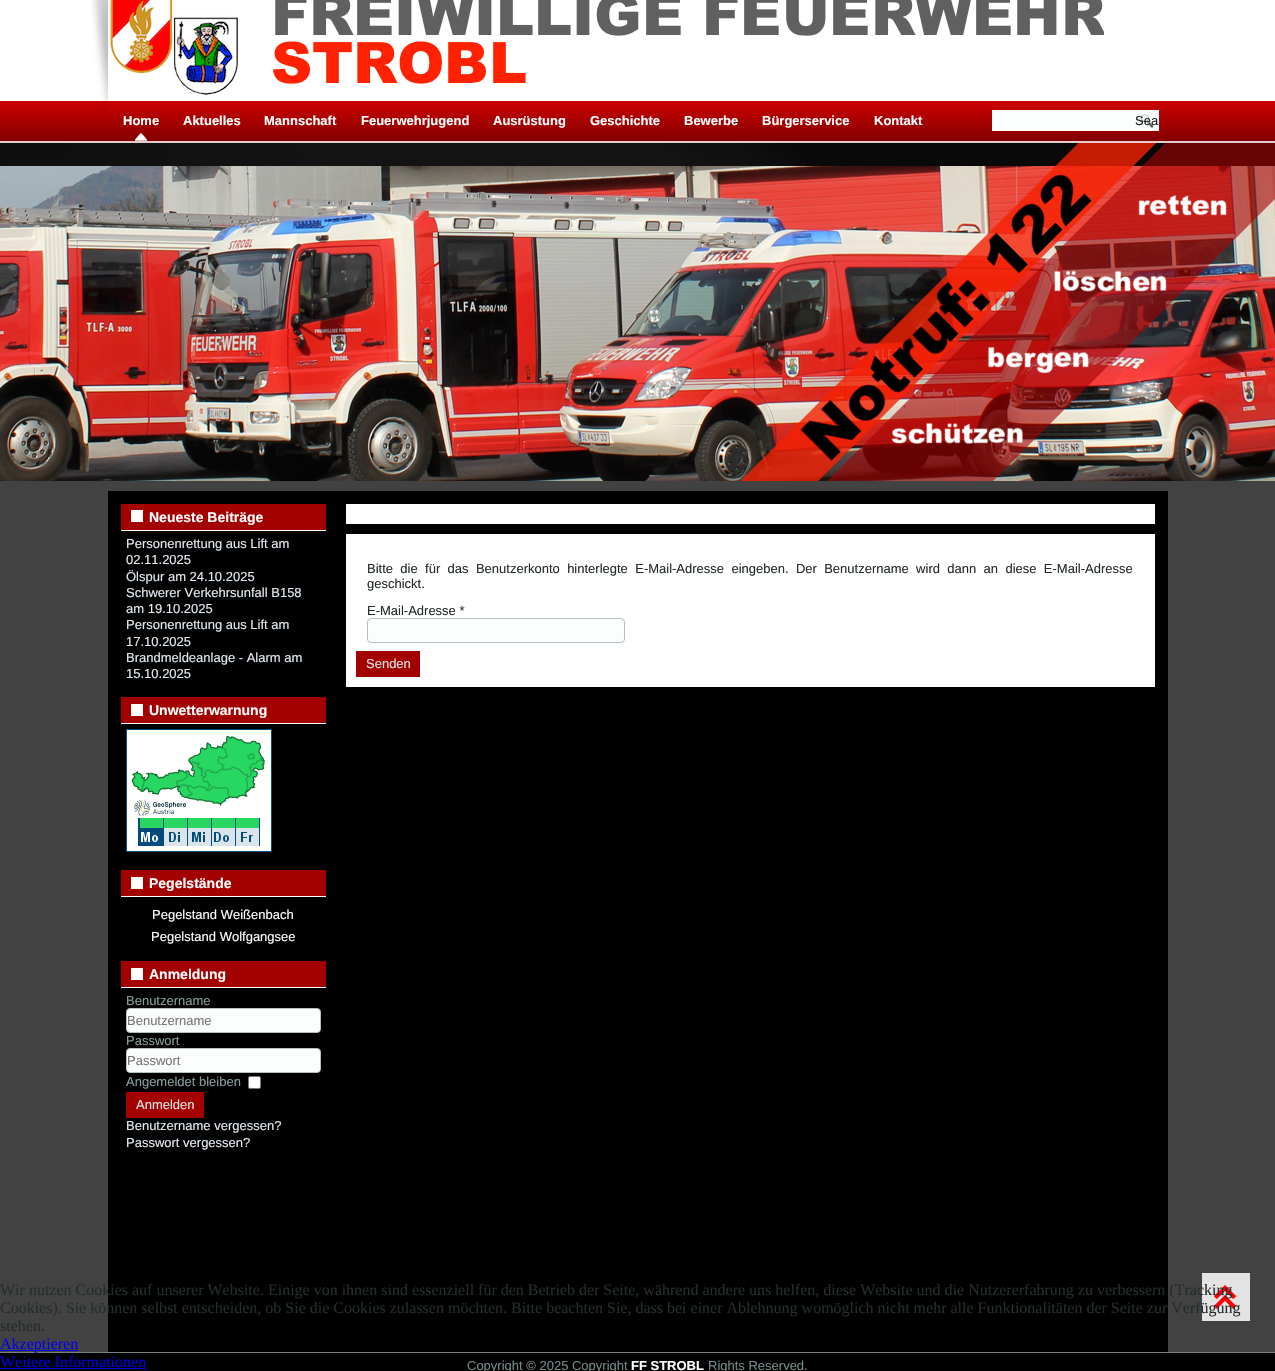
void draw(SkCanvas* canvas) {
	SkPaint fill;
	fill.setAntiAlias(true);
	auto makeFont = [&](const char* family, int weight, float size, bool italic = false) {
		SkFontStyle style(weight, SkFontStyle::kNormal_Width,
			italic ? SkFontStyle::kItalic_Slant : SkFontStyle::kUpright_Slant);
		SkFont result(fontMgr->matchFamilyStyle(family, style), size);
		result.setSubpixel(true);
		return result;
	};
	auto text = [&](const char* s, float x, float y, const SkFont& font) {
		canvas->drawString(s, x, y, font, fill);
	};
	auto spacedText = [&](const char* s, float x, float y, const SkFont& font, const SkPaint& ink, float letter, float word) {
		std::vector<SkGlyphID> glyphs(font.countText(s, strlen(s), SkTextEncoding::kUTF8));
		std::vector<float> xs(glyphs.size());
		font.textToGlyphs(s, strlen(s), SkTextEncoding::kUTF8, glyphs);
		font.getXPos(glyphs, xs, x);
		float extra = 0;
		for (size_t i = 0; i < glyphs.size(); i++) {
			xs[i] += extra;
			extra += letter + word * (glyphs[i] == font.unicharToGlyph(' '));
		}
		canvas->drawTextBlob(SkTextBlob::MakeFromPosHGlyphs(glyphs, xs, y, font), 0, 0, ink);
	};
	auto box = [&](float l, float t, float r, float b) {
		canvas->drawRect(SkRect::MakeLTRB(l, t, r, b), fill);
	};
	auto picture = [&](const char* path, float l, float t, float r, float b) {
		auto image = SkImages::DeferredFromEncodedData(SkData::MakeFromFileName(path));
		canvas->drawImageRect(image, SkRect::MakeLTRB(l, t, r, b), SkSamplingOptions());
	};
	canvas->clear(0xFF424242);
	picture("image0.png", 0, 143, 1275, 166);
	fill.setColor(0xFFFFFFFF);
	box(0, 0, 1275, 101);
	picture("image3.png", 0, 166, 1275, 481);
	picture("image2.png", 827, 143, 1275, 481);
	picture("image1.png", 740, 143, 1156, 481);
	{
		const SkColor colors[] = {0xFFCC0000, 0xFF800000};
		const float stops[] = {0, 1};
		const SkPoint ends[] = {{638, 101}, {638, 143}};
		fill.setShader(SkGradientShader::MakeLinear(ends, colors, stops, 2, SkTileMode::kClamp));
		fill.setAlpha(255);
	}
	box(0, 101, 1275, 141);
	picture("image4.png", 91, 0, 108, 109);
	picture("image5.png", 110, 0, 1104, 95);
	fill.setShader(nullptr);
	fill.setColor(0xFFE6CCCC);
	box(0, 141, 1275, 143);
	picture("image6.png", 135, 133, 147, 141);
	fill.setColor(0xFFFCFDFD);
	box(992, 110, 1159, 131);
	picture("image7.png", 1140, 114, 1154, 128);
	fill.setColor(0xFF000000);
	box(108, 491, 1168, 1352);
	fill.setColor(0xFFA30000);
	box(121, 504, 326, 530);
	fill.setColor(0xFFFFFFFF);
	box(121, 530, 326, 531);
	box(131, 510, 143, 522);
	fill.setColor(0xFFA30000);
	box(121, 697, 326, 723);
	fill.setColor(0xFFFFFFFF);
	box(121, 723, 326, 724);
	box(131, 704, 143, 716);
	picture("image8.png", 126, 729, 272, 852);
	fill.setColor(0xFFA30000);
	box(121, 870, 326, 896);
	fill.setColor(0xFFFFFFFF);
	box(121, 896, 326, 897);
	box(131, 877, 143, 889);
	fill.setColor(0xFFA30000);
	box(121, 961, 326, 987);
	fill.setColor(0xFFFFFFFF);
	box(121, 987, 326, 988);
	box(131, 968, 143, 980);
	fill.setColor(0xFFFCFDFD);
	canvas->drawRoundRect(SkRect::MakeLTRB(126.5f, 1008.5f, 320.5f, 1032.5f), 3.5f, 3.5f, fill);
	fill.setStyle(SkPaint::kStroke_Style);
	fill.setStrokeWidth(1);
	fill.setColor(0xFFB4C0C0);
	canvas->drawRoundRect(SkRect::MakeLTRB(126.5f, 1008.5f, 320.5f, 1032.5f), 3.5f, 3.5f, fill);
	fill.setStyle(SkPaint::kFill_Style);
	fill.setColor(0xFFFCFDFD);
	canvas->drawRoundRect(SkRect::MakeLTRB(126.5f, 1048.5f, 320.5f, 1072.5f), 3.5f, 3.5f, fill);
	fill.setStyle(SkPaint::kStroke_Style);
	fill.setColor(0xFFB4C0C0);
	canvas->drawRoundRect(SkRect::MakeLTRB(126.5f, 1048.5f, 320.5f, 1072.5f), 3.5f, 3.5f, fill);
	fill.setStyle(SkPaint::kFill_Style);
	fill.setColor(0xFFFFFFFF);
	canvas->drawRoundRect(SkRect::MakeLTRB(248.5f, 1076.5f, 260.5f, 1088.5f), 1.5f, 1.5f, fill);
	fill.setStyle(SkPaint::kStroke_Style);
	fill.setColor(0xFF767676);
	canvas->drawRoundRect(SkRect::MakeLTRB(248.5f, 1076.5f, 260.5f, 1088.5f), 1.5f, 1.5f, fill);
	fill.setStyle(SkPaint::kFill_Style);
	fill.setColor(0xFFA30000);
	box(126, 1092, 204, 1118);
	fill.setColor(0xFFFFFFFF);
	box(346, 504, 1155, 524);
	box(346, 534, 1155, 687);
	fill.setColor(0xFFFCFDFD);
	canvas->drawRoundRect(SkRect::MakeLTRB(367.5f, 618.5f, 624.5f, 642.5f), 3.5f, 3.5f, fill);
	fill.setStyle(SkPaint::kStroke_Style);
	fill.setColor(0xFFB4C0C0);
	canvas->drawRoundRect(SkRect::MakeLTRB(367.5f, 618.5f, 624.5f, 642.5f), 3.5f, 3.5f, fill);
	fill.setStyle(SkPaint::kFill_Style);
	fill.setColor(0xFFA30000);
	box(356, 651, 420, 677);
	fill.setColor(0xFFE3E3E3);
	box(1202, 1273, 1250, 1321);
	picture("image9.png", 1214, 1285, 1237, 1309);
	fill.setColor(0xFF0000EE);
	box(0, 1350, 78, 1351);
	fill.setColor(0xFF000000);
	box(0, 1353, 1275, 1371);
	fill.setColor(0xFF0000EE);
	box(0, 1368, 146, 1369);
	fill.setColor(0xFF788080);
	box(0, 1352, 1275, 1353);
	auto font1 = makeFont("Liberation Sans", 700, 13);
	fill.setColor(0xFFFCFDFD);
	text("Home", 123, 125, font1);
	text("Aktuelles", 183, 125, font1);
	text("Mannschaft", 264, 125, font1);
	text("Feuerwehrjugend", 361, 125, font1);
	text("Ausrüstung", 493, 125, font1);
	text("Geschichte", 590, 125, font1);
	text("Bewerbe", 684, 125, font1);
	text("Bürgerservice", 762, 125, font1);
	text("Kontakt", 874, 125, font1);
	auto font2 = makeFont("Liberation Sans", 400, 13);
	fill.setColor(0xFF1A1E1E);
	text("Sea", 1135, 125, font2);
	auto font3 = makeFont("Liberation Sans", 700, 14);
	fill.setColor(0xFFFCFDFD);
	text("Neueste Beiträge", 149, 522, font3);
	fill.setColor(0xFFE1E8EF);
	text("Personenrettung aus Lift am", 126, 548, font2);
	text("02.11.2025", 126, 564, font2);
	text("Ölspur am 24.10.2025", 126, 581, font2);
	text("Schwerer Verkehrsunfall B158", 126, 597, font2);
	text("am 19.10.2025", 126, 613, font2);
	text("Personenrettung aus Lift am", 126, 629, font2);
	text("17.10.2025", 126, 646, font2);
	text("Brandmeldeanlage - Alarm am", 126, 662, font2);
	text("15.10.2025", 126, 678, font2);
	fill.setColor(0xFFFCFDFD);
	text("Unwetterwarnung", 149, 715, font3);
	text("Pegelstände", 149, 888, font3);
	text("Pegelstand Weißenbach", 152, 919, font2);
	text("Pegelstand Wolfgangsee", 151, 941, font2);
	text("Anmeldung", 149, 979, font3);
	fill.setColor(0xFF8B9D9D);
	text("Benutzername", 126, 1005, font2);
	fill.setColor(0xFF757575);
	text("Benutzername", 127, 1025, font2);
	fill.setColor(0xFF8B9D9D);
	text("Passwort", 126, 1045, font2);
	fill.setColor(0xFF757575);
	text("Passwort", 127, 1065, font2);
	fill.setColor(0xFF8B9D9D);
	text("Angemeldet bleiben", 126, 1086, font2);
	fill.setColor(0xFFDBE1E1);
	text("Anmelden", 136, 1109, font2);
	fill.setColor(0xFFE1E8EF);
	text("Benutzername vergessen?", 126, 1130, font2);
	text("Passwort vergessen?", 126, 1147, font2);
	fill.setColor(0xFF252C2C);
	spacedText("Bitte die für das Benutzerkonto hinterlegte E-Mail-Adresse eingeben. Der Benutzername wird dann an diese E-Mail-Adresse", 367, 573, font2, fill, 0, 3.75f);
	text("geschickt.", 367, 588, font2);
	text("E-Mail-Adresse *", 367, 615, font2);
	fill.setColor(0xFFDBE1E1);
	text("Senden", 366, 668, font2);
	auto font4 = makeFont("Liberation Serif", 400, 16);
	fill.setColor(0xFF252C2C);
	text("Wir nutzen Cookies auf unserer Website. Einige von ihnen sind essenziell für den Betrieb der Seite, während andere uns helfen, diese Website und die Nutzererfahrung zu verbessern (Tracking", 0, 1295, font4);
	text("Cookies). Sie können selbst entscheiden, ob Sie die Cookies zulassen möchten. Bitte beachten Sie, dass bei einer Ablehnung womöglich nicht mehr alle Funktionalitäten der Seite zur Verfügung", 0, 1313, font4);
	text("stehen.", 0, 1331, font4);
	fill.setColor(0xFF0000EE);
	text("Akzeptieren", 0, 1349, font4);
	text("Weitere Informationen", 0, 1367, font4);
	fill.setColor(0xFF758A8A);
	text("Copyright © 2025 Copyright", 467, 1370, font2);
	fill.setColor(0xFFFCFDFD);
	text("FF STROBL", 631, 1370, font1);
	fill.setColor(0xFF758A8A);
	text("Rights Reserved.", 708, 1370, font2);
}
